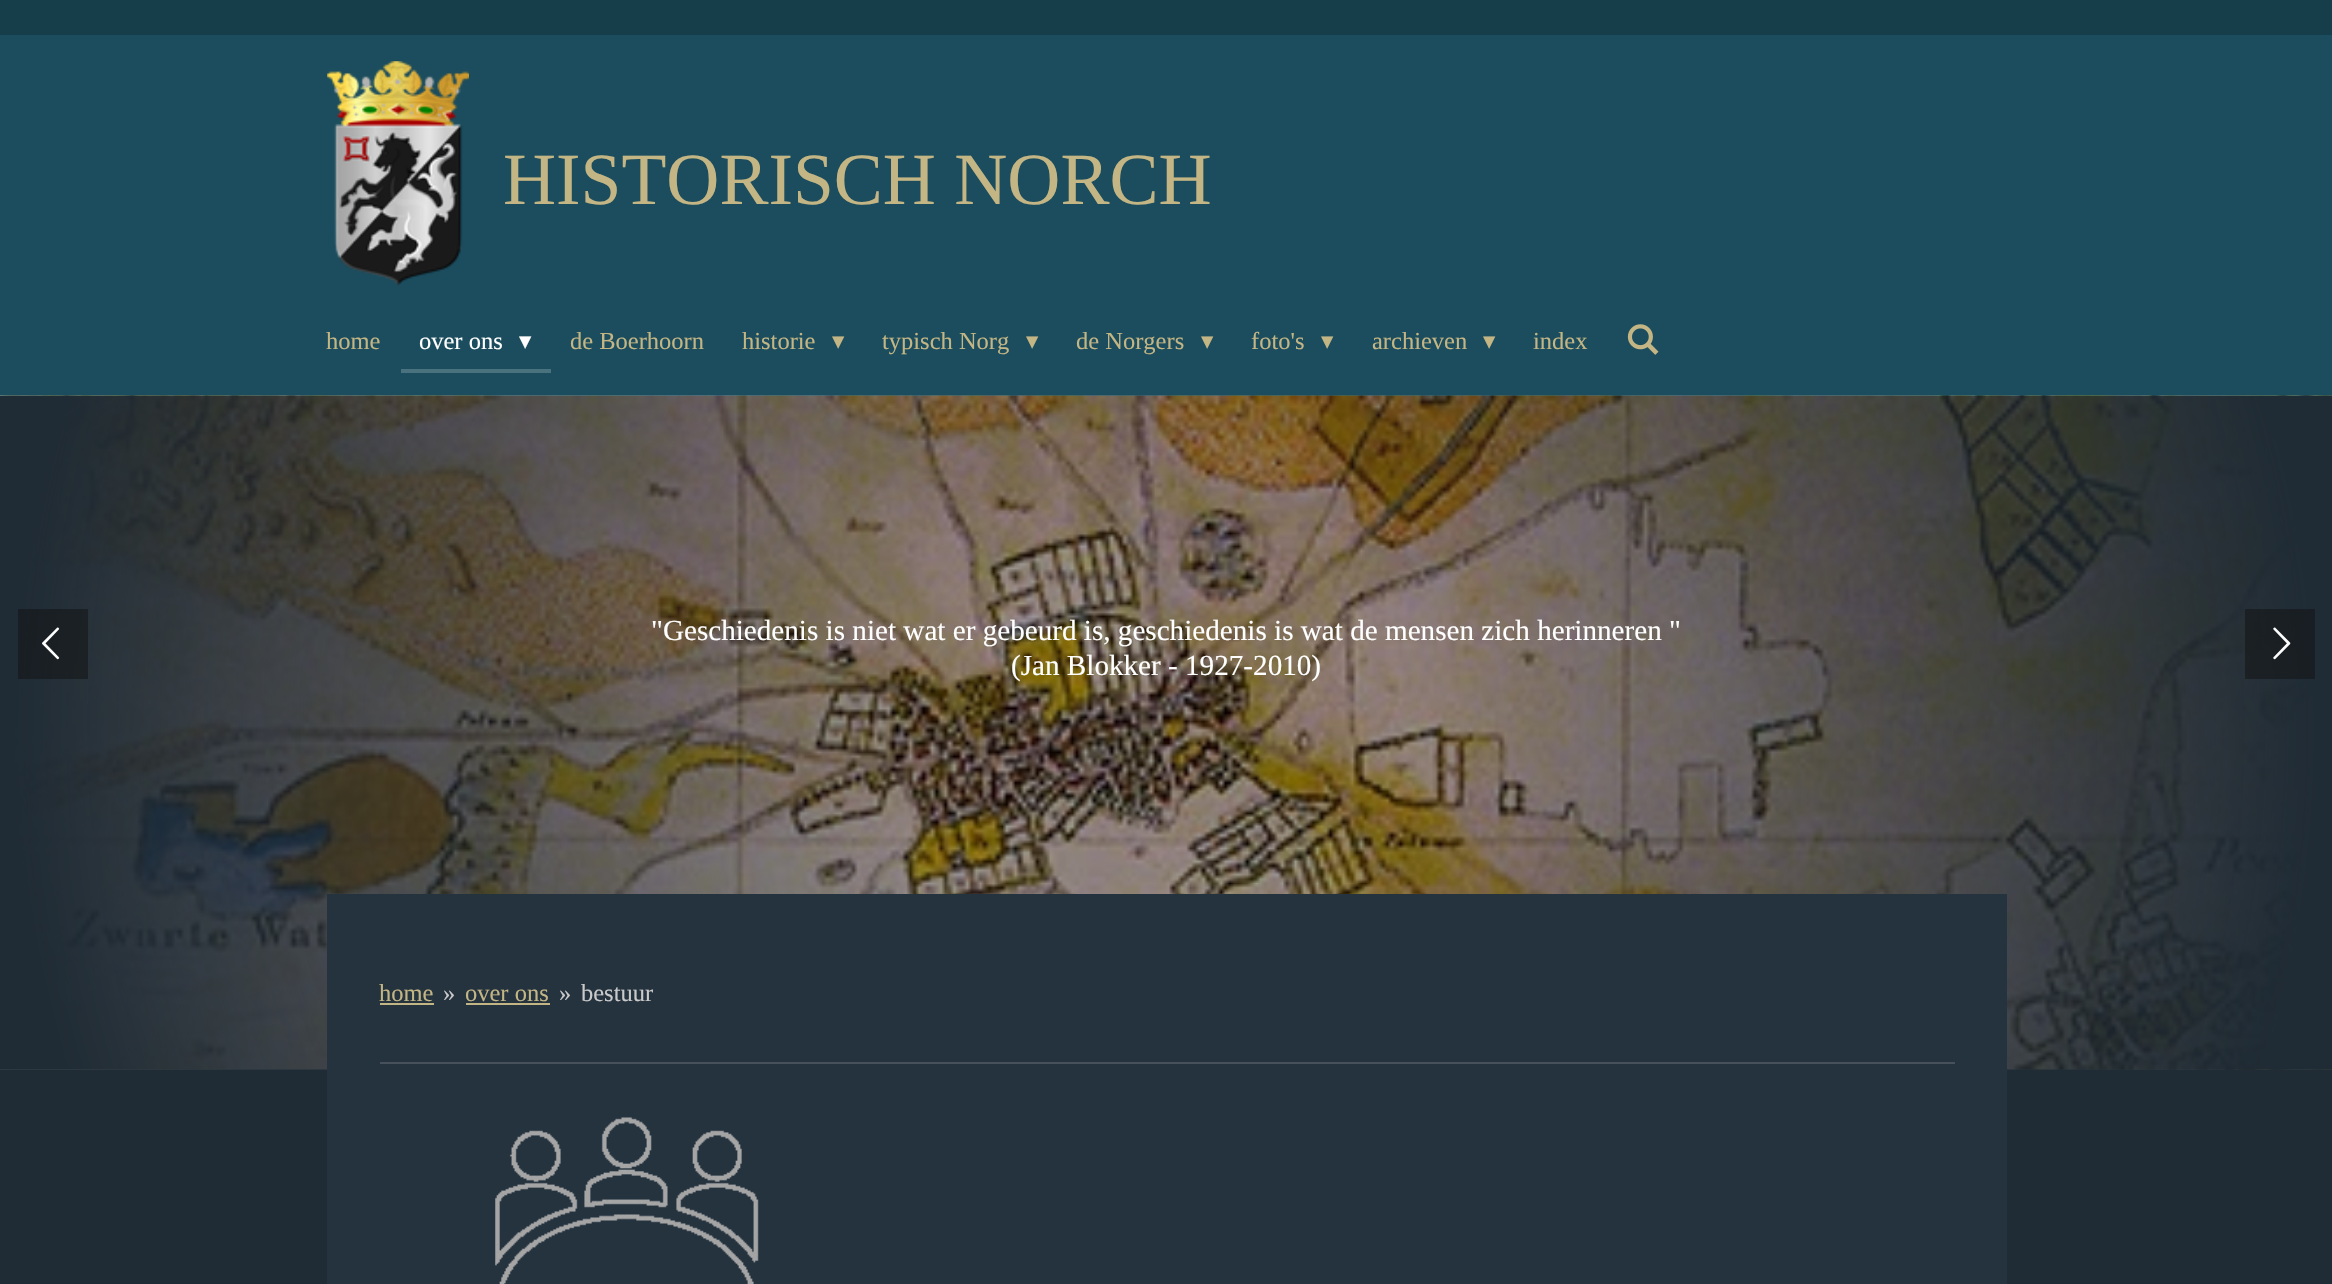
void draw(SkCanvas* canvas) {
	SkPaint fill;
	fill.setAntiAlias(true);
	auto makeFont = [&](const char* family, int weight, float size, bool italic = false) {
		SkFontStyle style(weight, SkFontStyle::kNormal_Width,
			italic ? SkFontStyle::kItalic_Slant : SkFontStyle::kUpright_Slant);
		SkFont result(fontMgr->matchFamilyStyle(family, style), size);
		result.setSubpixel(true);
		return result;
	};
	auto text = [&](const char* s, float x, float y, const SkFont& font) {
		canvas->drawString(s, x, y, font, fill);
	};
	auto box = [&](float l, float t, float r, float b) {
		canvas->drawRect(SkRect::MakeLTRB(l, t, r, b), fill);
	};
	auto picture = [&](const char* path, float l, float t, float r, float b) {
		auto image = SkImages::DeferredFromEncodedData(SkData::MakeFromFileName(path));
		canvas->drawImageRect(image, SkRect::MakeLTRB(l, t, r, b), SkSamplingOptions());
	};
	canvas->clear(0xFF1F2B35);
	fill.setColor(0xFF1B4D5E);
	box(0, 35, 2332, 396);
	fill.setColor(0xFF153D4A);
	box(0, 0, 2332, 35);
	picture("image0.png", 327, 61, 469, 286);
	fill.setColor(0xFF49717E);
	box(401, 369, 551, 373);
	picture("image1.png", 1627, 324, 1659, 355);
	picture("image4.png", 0, 395, 2332, 1070);
	fill.setColor(0x800F0F0F);
	box(18, 609, 88, 679);
	picture("image2.png", 42, 627, 60, 660);
	box(2245, 609, 2315, 679);
	picture("image3.png", 2273, 627, 2291, 660);
	fill.setColor(0xFF25333F);
	box(327, 894, 2007, 1284);
	fill.setColor(0xFFC3B584);
	box(380, 1003, 434, 1005);
	box(466, 1003, 550, 1005);
	fill.setColor(0xFF46515B);
	box(380, 1062, 1955, 1064);
	picture("image5.png", 495, 1117, 759, 1284);
	auto font1 = makeFont("Liberation Serif", 400, 73.5f);
	fill.setColor(0xFFC3B584);
	text("HISTORISCH NORCH", 503, 204, font1);
	auto font2 = makeFont("Liberation Serif", 400, 24.5f);
	text("home", 326, 349, font2);
	fill.setColor(0xFFFFFFFF);
	text("over ons", 419, 349, font2);
	auto font3 = makeFont("DejaVu Sans", 400, 24.5f);
	text("▾", 519, 349, font3);
	fill.setColor(0xFFC3B584);
	text("de Boerhoorn", 570, 349, font2);
	text("historie", 742, 349, font2);
	text("▾", 832, 349, font3);
	text("typisch Norg", 882, 349, font2);
	text("▾", 1026, 349, font3);
	text("de Norgers", 1076, 349, font2);
	text("▾", 1201, 349, font3);
	text("foto's", 1251, 349, font2);
	text("▾", 1321, 349, font3);
	text("archieven", 1372, 349, font2);
	text("▾", 1483, 349, font3);
	text("index", 1533, 349, font2);
	auto font4 = makeFont("Liberation Serif", 400, 29.15f);
	fill.setColor(0xFFFFFFFF);
	text("\"Geschiedenis is niet wat er gebeurd is, geschiedenis is wat de mensen zich herinneren \"", 651, 640, font4);
	text("(Jan Blokker - 1927-2010)", 1011, 675, font4);
	fill.setColor(0xFFC3B584);
	text("home", 379, 1001, font2);
	fill.setColor(0xFFCACACA);
	text("»", 443, 1001, font2);
	fill.setColor(0xFFC3B584);
	text("over ons", 465, 1001, font2);
	fill.setColor(0xFFCACACA);
	text("»", 559, 1001, font2);
	text("bestuur", 581, 1001, font2);
}
